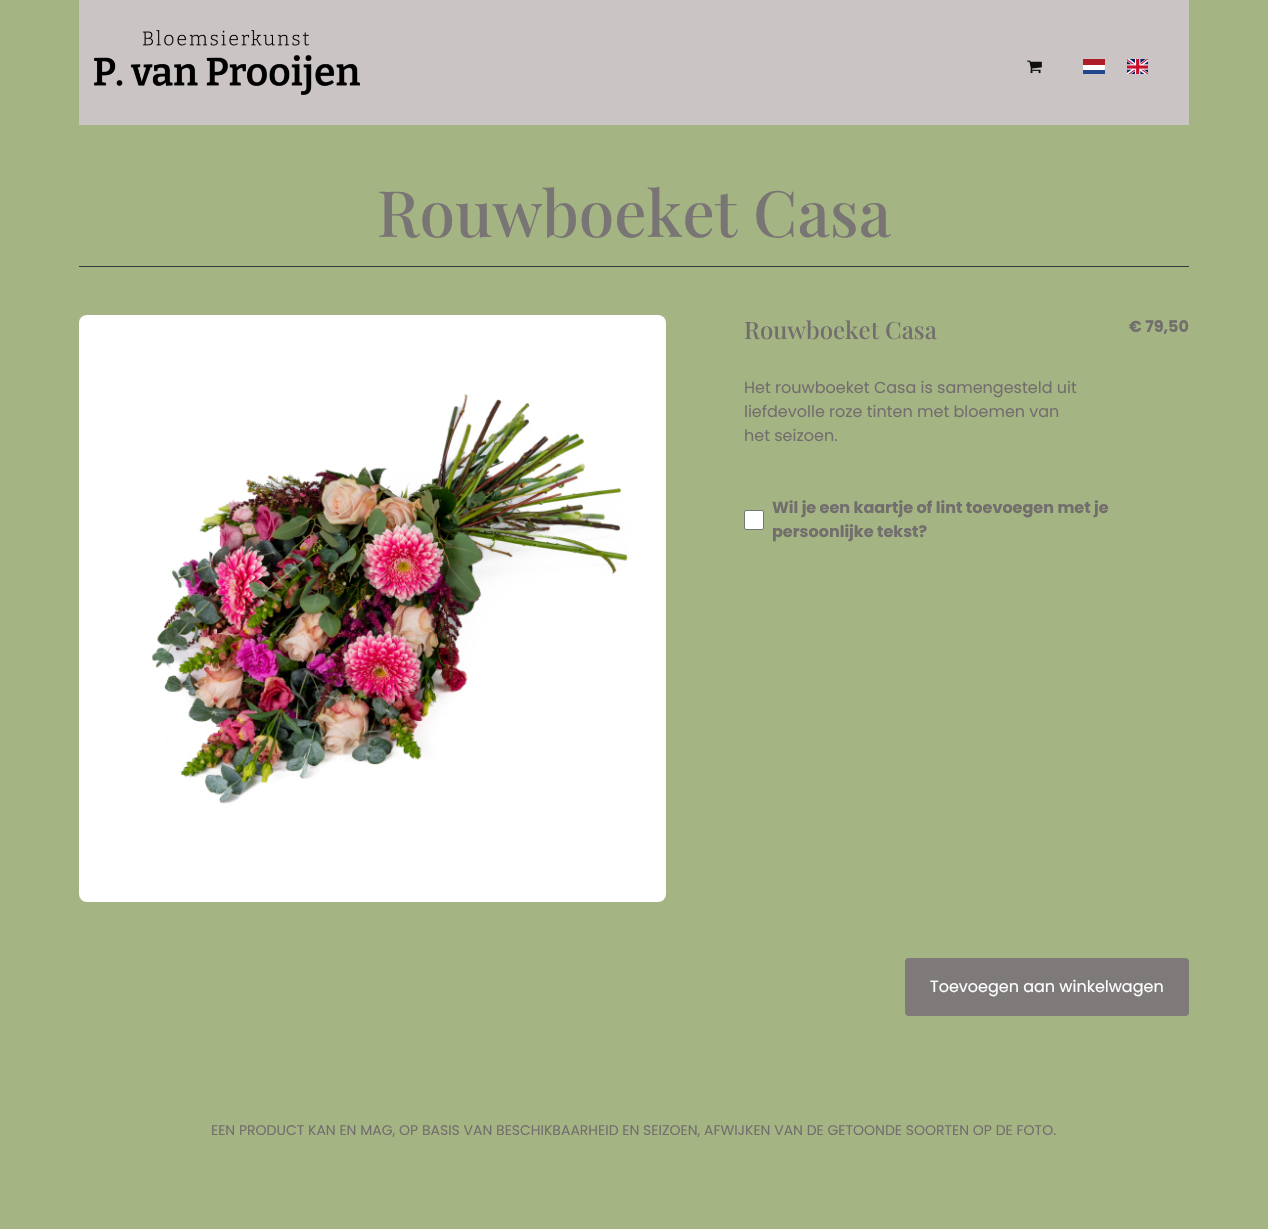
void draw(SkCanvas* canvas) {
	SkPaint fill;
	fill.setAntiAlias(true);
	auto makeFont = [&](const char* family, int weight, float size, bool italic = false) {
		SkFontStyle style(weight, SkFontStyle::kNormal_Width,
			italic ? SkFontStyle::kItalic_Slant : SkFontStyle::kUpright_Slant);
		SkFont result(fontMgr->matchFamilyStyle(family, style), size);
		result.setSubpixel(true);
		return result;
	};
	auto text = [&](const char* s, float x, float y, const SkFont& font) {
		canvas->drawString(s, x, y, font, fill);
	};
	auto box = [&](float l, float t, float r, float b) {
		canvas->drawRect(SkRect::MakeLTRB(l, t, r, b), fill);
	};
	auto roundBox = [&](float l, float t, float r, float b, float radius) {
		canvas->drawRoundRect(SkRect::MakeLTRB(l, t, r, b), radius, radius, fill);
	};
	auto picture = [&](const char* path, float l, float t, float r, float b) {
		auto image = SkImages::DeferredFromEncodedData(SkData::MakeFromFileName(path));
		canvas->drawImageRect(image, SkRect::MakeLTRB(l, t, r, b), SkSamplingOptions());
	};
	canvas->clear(0xFFA5B483);
	fill.setColor(0xFFCAC4C4);
	box(79, 0, 1189, 125);
	picture("image0.png", 94, 30, 360, 95);
	picture("image1.png", 1027, 60, 1042, 74);
	fill.setColor(0xFFAE1C28);
	box(1083, 59, 1105, 65);
	fill.setColor(0xFFFFFFFF);
	box(1083, 65, 1105, 70);
	fill.setColor(0xFF21468B);
	box(1083, 70, 1105, 74);
	picture("image2.png", 1127, 59, 1148, 74);
	fill.setColor(0xFF343A40);
	box(79, 266, 1189, 267);
	picture("image3.png", 79, 315, 666, 902);
	fill.setColor(0xFFFFFFFF);
	canvas->drawRoundRect(SkRect::MakeLTRB(744.5f, 510.5f, 763.5f, 529.5f), 1.5f, 1.5f, fill);
	fill.setStyle(SkPaint::kStroke_Style);
	fill.setStrokeWidth(1);
	fill.setColor(0xFF767676);
	canvas->drawRoundRect(SkRect::MakeLTRB(744.5f, 510.5f, 763.5f, 529.5f), 1.5f, 1.5f, fill);
	fill.setStyle(SkPaint::kFill_Style);
	fill.setColor(0xFF7F7A7A);
	roundBox(905, 958, 1189, 1016, 4);
	auto font1 = makeFont("Playfair Display", 500, 64);
	fill.setColor(0xFF7A7575);
	text("Rouwboeket Casa", 377, 237, font1);
	auto font2 = makeFont("Playfair Display", 500, 24);
	fill.setColor(0xFF726E6E);
	text("Rouwboeket Casa", 744, 339, font2);
	auto font3 = makeFont("Poppins", 400, 16);
	text("Het rouwboeket Casa is samengesteld uit", 744, 393, font3);
	text("liefdevolle roze tinten met bloemen van", 744, 417, font3);
	text("het seizoen.", 744, 441, font3);
	auto font4 = makeFont("Poppins", 700, 16);
	text("€ 79,50", 1129, 332, font4);
	text("Wil je een kaartje of lint toevoegen met je", 772, 513, font4);
	text("persoonlijke tekst?", 772, 537, font4);
	fill.setColor(0xFFFFFFFF);
	text("Toevoegen aan winkelwagen", 930, 992, font3);
	auto font5 = makeFont("Poppins", 400, 14);
	fill.setColor(0xFF726E6E);
	text("EEN PRODUCT KAN EN MAG, OP BASIS VAN BESCHIKBAARHEID EN SEIZOEN, AFWIJKEN VAN DE GETOONDE SOORTEN OP DE FOTO.", 211, 1135, font5);
}
